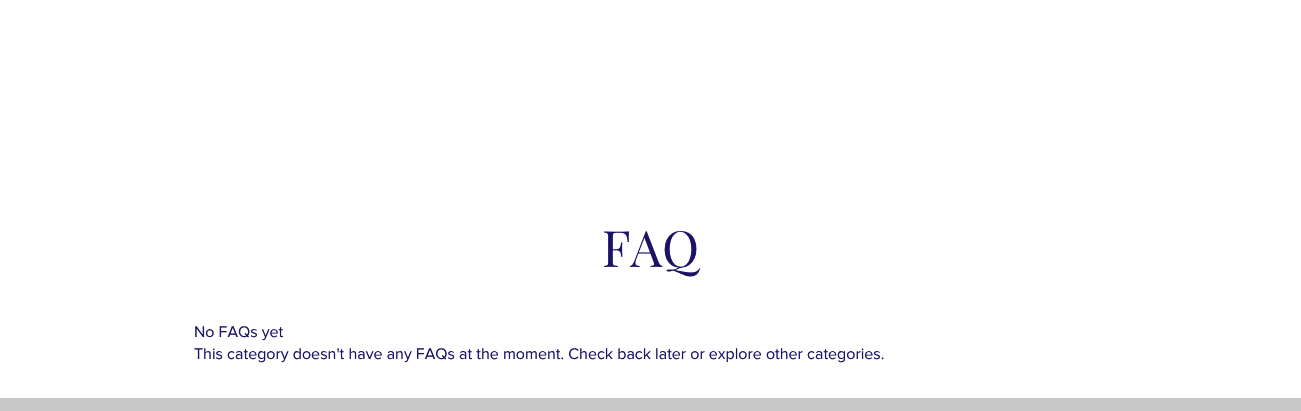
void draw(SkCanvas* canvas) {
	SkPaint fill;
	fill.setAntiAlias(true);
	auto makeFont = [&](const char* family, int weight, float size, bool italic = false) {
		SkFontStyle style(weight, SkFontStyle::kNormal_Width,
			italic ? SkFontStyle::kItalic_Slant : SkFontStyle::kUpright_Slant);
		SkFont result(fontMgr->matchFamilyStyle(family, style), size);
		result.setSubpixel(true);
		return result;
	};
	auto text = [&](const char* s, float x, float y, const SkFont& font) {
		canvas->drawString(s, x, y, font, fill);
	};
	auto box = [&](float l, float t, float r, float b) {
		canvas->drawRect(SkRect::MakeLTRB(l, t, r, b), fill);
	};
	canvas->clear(0xFFFFFFFF);
	fill.setColor(0xFFC7C7C7);
	box(0, 398, 1301, 411);
	auto font1 = makeFont("Playfair Display", 400, 50);
	fill.setColor(0xFF1B1466);
	text("FAQ", 602, 267, font1);
	auto font2 = makeFont("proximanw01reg", 400, 16);
	text("No FAQs yet", 194, 337, font2);
	text("This category doesn't have any FAQs at the moment. Check back later or explore other categories.", 194, 359, font2);
}
